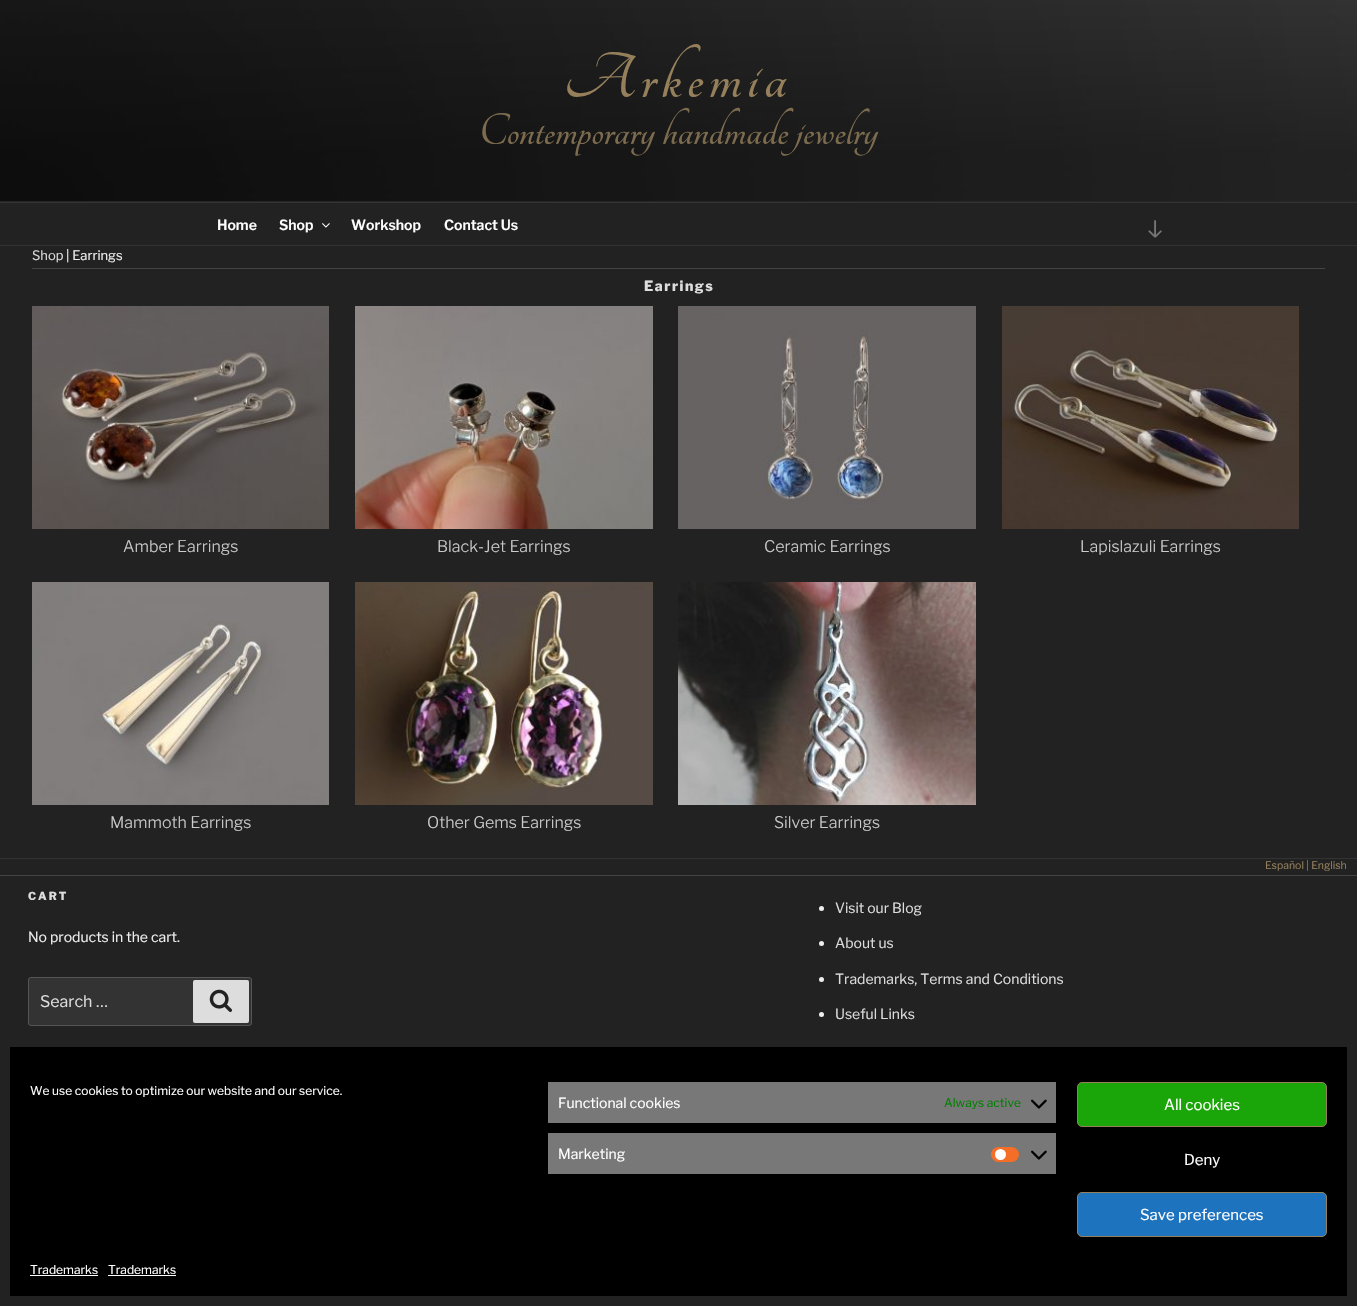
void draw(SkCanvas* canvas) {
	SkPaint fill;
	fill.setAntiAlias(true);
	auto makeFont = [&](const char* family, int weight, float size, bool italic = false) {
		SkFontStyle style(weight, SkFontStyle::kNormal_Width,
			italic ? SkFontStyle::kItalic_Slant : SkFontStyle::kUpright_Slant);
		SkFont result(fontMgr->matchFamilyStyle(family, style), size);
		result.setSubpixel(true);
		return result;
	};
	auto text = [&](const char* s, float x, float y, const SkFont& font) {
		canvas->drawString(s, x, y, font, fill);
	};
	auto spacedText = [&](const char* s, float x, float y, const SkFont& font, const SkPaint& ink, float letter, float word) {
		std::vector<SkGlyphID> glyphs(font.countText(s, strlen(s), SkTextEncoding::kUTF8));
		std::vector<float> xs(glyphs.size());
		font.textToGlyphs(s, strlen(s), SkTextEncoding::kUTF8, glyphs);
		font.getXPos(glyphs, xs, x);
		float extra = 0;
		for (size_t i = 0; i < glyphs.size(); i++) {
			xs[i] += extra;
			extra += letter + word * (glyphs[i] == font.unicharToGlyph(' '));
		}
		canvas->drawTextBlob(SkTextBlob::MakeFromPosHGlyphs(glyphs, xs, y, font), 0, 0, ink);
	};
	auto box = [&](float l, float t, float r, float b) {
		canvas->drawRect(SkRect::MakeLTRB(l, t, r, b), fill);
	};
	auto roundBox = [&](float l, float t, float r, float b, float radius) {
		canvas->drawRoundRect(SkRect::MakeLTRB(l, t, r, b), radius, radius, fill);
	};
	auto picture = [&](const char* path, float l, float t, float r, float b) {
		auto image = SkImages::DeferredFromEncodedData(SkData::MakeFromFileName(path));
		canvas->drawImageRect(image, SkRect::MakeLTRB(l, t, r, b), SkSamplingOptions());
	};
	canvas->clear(0xFF222222);
	fill.setColor(0xFF262626);
	box(0, 201, 1357, 202);
	picture("image0.png", 0, 0, 1357, 201);
	fill.setColor(0xFF333333);
	box(0, 202, 1357, 203);
	box(0, 245, 1357, 246);
	picture("image1.png", 322, 223, 330, 228);
	picture("image2.png", 1148, 220, 1162, 238);
	fill.setColor(0xFF444444);
	box(32, 268, 1325, 269);
	picture("image3.png", 32, 306, 329, 529);
	picture("image4.png", 355, 306, 653, 529);
	picture("image5.png", 678, 306, 976, 529);
	picture("image6.png", 1002, 306, 1299, 529);
	picture("image7.png", 32, 582, 329, 805);
	picture("image8.png", 355, 582, 653, 805);
	picture("image9.png", 678, 582, 976, 805);
	fill.setColor(0xFF333333);
	box(0, 858, 1357, 859);
	fill.setColor(0xFF444444);
	box(0, 875, 1357, 876);
	fill.setColor(0xFF333333);
	canvas->drawRoundRect(SkRect::MakeLTRB(28.5f, 977.5f, 251.5f, 1025.5f), 2.5f, 2.5f, fill);
	fill.setStyle(SkPaint::kStroke_Style);
	fill.setStrokeWidth(1);
	fill.setColor(0xFF555555);
	canvas->drawRoundRect(SkRect::MakeLTRB(28.5f, 977.5f, 251.5f, 1025.5f), 2.5f, 2.5f, fill);
	fill.setStyle(SkPaint::kFill_Style);
	fill.setColor(0xFFDDDDDD);
	roundBox(193, 980, 249, 1023, 2);
	picture("image10.png", 209, 989, 232, 1012);
	fill.setColor(0xFFEEEEEE);
	canvas->drawCircle(821.5f, 908.5f, 2.5f, fill);
	canvas->drawCircle(821.5f, 943.5f, 2.5f, fill);
	canvas->drawCircle(821.5f, 979.5f, 2.5f, fill);
	canvas->drawCircle(821.5f, 1014.5f, 2.5f, fill);
	fill.setColor(0xFF000000);
	box(10, 1047, 1347, 1296);
	fill.setColor(0xFF787878);
	box(548, 1082, 1056, 1123);
	picture("image11.png", 1031, 1099, 1047, 1109);
	box(548, 1133, 1056, 1174);
	fill.setColor(0xFFF56E28);
	roundBox(991, 1147, 1019, 1162, 7.5f);
	fill.setColor(0xFFFFFFFF);
	canvas->drawCircle(1000.5f, 1154.5f, 5.5f, fill);
	picture("image11.png", 1031, 1150, 1047, 1160);
	fill.setColor(0xFF1AA508);
	canvas->drawRoundRect(SkRect::MakeLTRB(1077.5f, 1082.5f, 1326.5f, 1126.5f), 4.5f, 4.5f, fill);
	fill.setStyle(SkPaint::kStroke_Style);
	fill.setColor(0xFF95805B);
	canvas->drawRoundRect(SkRect::MakeLTRB(1077.5f, 1082.5f, 1326.5f, 1126.5f), 4.5f, 4.5f, fill);
	fill.setStyle(SkPaint::kFill_Style);
	fill.setColor(0xFF1E73BE);
	canvas->drawRoundRect(SkRect::MakeLTRB(1077.5f, 1192.5f, 1326.5f, 1236.5f), 4.5f, 4.5f, fill);
	fill.setStyle(SkPaint::kStroke_Style);
	fill.setColor(0xFF95805B);
	canvas->drawRoundRect(SkRect::MakeLTRB(1077.5f, 1192.5f, 1326.5f, 1236.5f), 4.5f, 4.5f, fill);
	fill.setStyle(SkPaint::kFill_Style);
	fill.setColor(0xFFFFFFFF);
	box(30, 1275, 98, 1276);
	box(108, 1275, 176, 1276);
	auto font1 = makeFont("Tangerine", 700, 70);
	fill.setColor(0xFF95805B);
	spacedText("Arkemia", 564, 97, font1, fill, 5.5f, 0);
	auto font2 = makeFont("Tangerine", 700, 48);
	fill.setColor(0xFF7C6B4E);
	text("Contemporary handmade jewelry", 479, 144, font2);
	auto font3 = makeFont("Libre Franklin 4", 100, 14);
	fill.setColor(0xFFFFFFFF);
	text("Home", 217, 230, font3);
	text("Shop", 279, 230, font3);
	text("Workshop", 351, 230, font3);
	text("Contact Us", 444, 230, font3);
	auto font4 = makeFont("Libre Franklin", 100, 13);
	fill.setColor(0xFFDDDDDD);
	text("Shop", 32, 260, font4);
	fill.setColor(0xFFEEEEEE);
	text("| Earrings", 66, 260, font4);
	auto font5 = makeFont("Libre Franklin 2", 100, 14);
	fill.setColor(0xFFDDDDDD);
	spacedText("Earrings", 644, 291, font5, fill, 1.5f, 0);
	auto font6 = makeFont("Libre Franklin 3", 100, 16);
	fill.setColor(0xFFCCCCCC);
	text("Amber Earrings", 123, 552, font6);
	text("Black-Jet Earrings", 437, 552, font6);
	text("Ceramic Earrings", 764, 552, font6);
	text("Lapislazuli Earrings", 1080, 552, font6);
	text("Mammoth Earrings", 110, 828, font6);
	text("Other Gems Earrings", 427, 828, font6);
	text("Silver Earrings", 774, 828, font6);
	auto font7 = makeFont("Libre Franklin", 100, 10.5f);
	fill.setColor(0xFF95805B);
	text("Español | English", 1265, 869, font7);
	auto font8 = makeFont("Libre Franklin 2", 100, 11);
	fill.setColor(0xFFDDDDDD);
	spacedText("CART", 28, 900, font8, fill, 2, 0);
	auto font9 = makeFont("Libre Franklin", 100, 14);
	fill.setColor(0xFFEEEEEE);
	text("No products in the cart.", 28, 942, font9);
	auto font10 = makeFont("Libre Franklin", 100, 16);
	fill.setColor(0xFFDDDDDD);
	text("Search …", 40, 1007, font10);
	text("Visit our Blog", 835, 913, font9);
	text("About us", 835, 948, font9);
	text("Trademarks, Terms and Conditions", 835, 984, font9);
	text("Useful Links", 835, 1019, font9);
	auto font11 = makeFont("Libre Franklin", 100, 12);
	fill.setColor(0xFFFFFFFF);
	text("We use cookies to optimize our website and our service.", 30, 1095, font11);
	text("Functional cookies", 558, 1108, font9);
	fill.setColor(0xFF008000);
	text("Always active", 944, 1107, font11);
	fill.setColor(0xFFFFFFFF);
	text("Marketing", 558, 1159, font9);
	auto font12 = makeFont("Libre Franklin", 100, 15);
	text("All cookies", 1164, 1110, font12);
	text("Deny", 1184, 1165, font12);
	text("Save preferences", 1140, 1220, font12);
	text("Trademarks", 30, 1274, font11);
	text("Trademarks", 108, 1274, font11);
}
